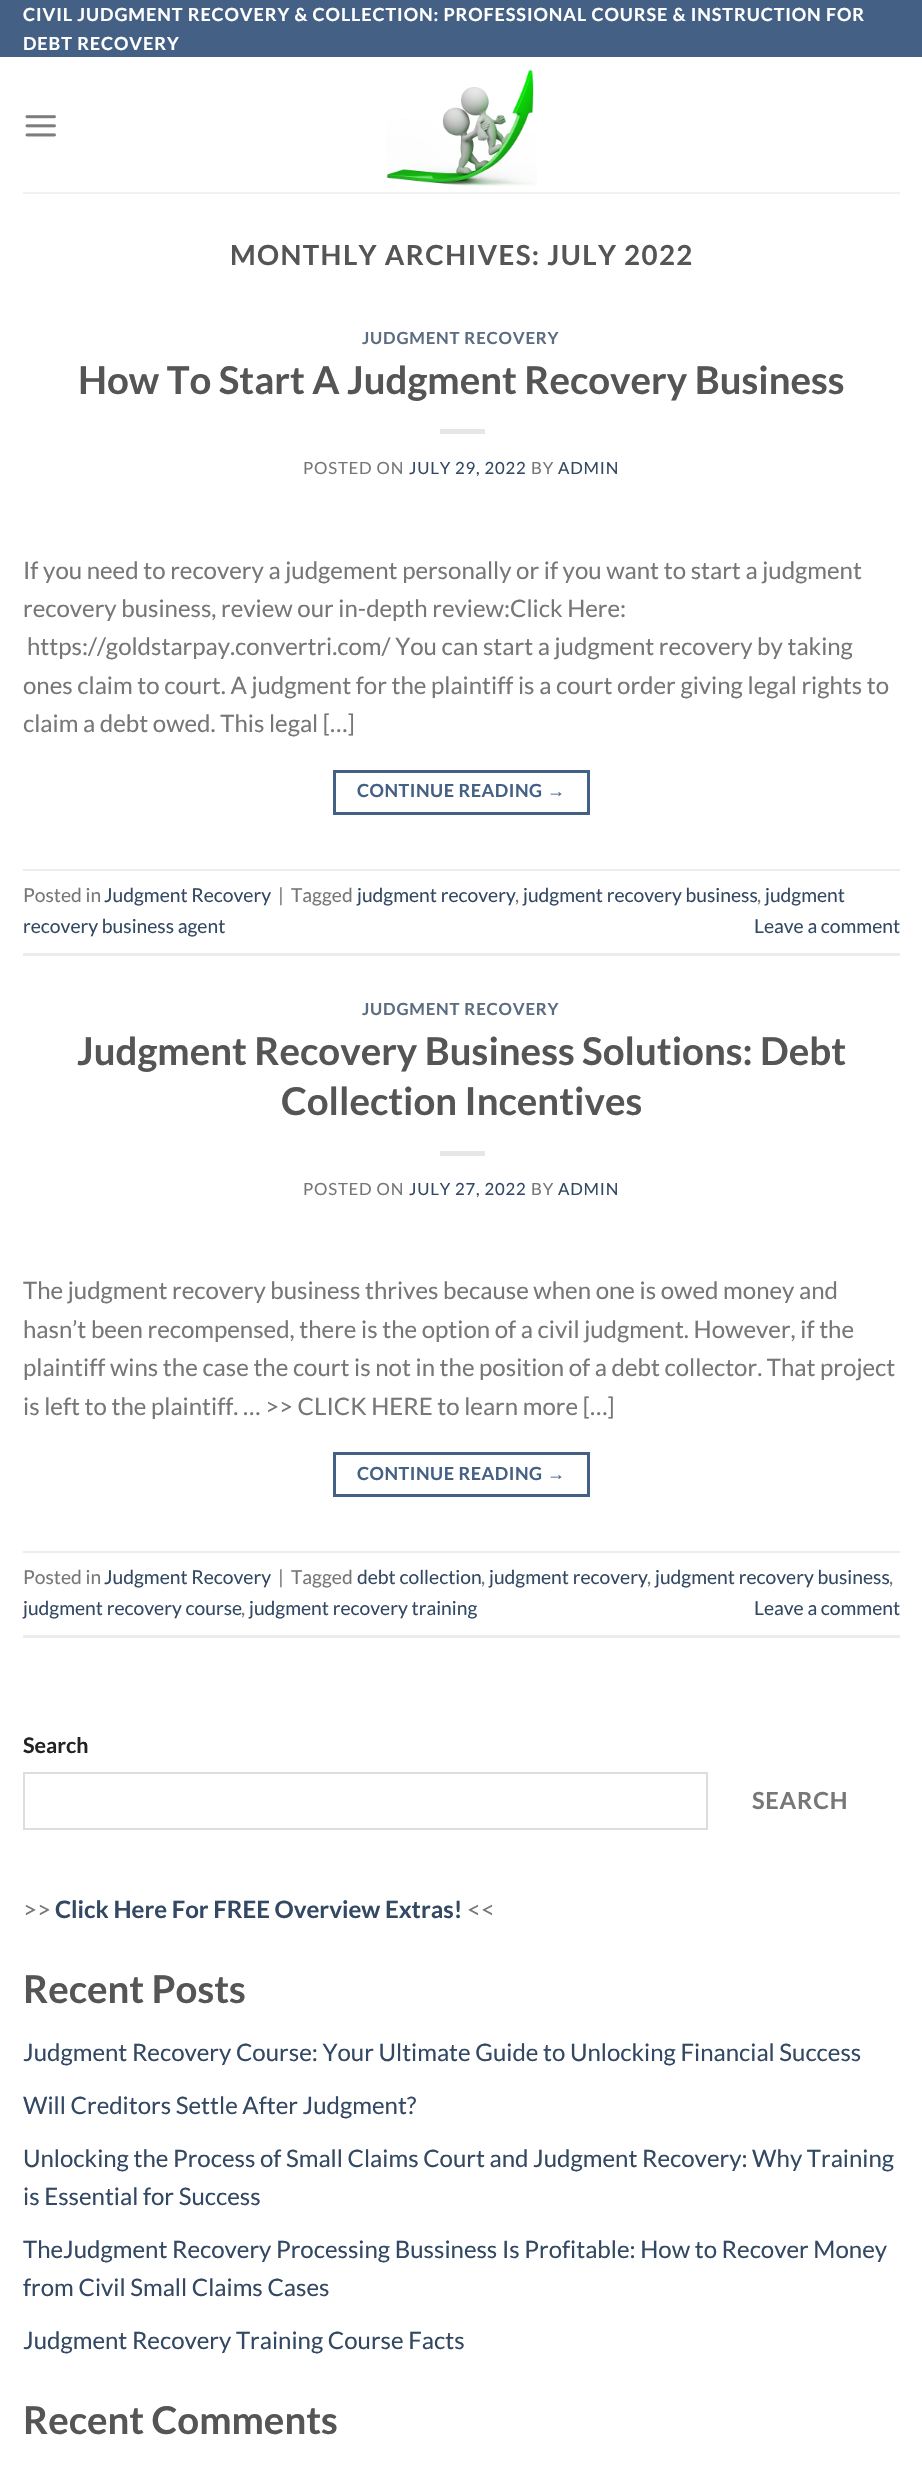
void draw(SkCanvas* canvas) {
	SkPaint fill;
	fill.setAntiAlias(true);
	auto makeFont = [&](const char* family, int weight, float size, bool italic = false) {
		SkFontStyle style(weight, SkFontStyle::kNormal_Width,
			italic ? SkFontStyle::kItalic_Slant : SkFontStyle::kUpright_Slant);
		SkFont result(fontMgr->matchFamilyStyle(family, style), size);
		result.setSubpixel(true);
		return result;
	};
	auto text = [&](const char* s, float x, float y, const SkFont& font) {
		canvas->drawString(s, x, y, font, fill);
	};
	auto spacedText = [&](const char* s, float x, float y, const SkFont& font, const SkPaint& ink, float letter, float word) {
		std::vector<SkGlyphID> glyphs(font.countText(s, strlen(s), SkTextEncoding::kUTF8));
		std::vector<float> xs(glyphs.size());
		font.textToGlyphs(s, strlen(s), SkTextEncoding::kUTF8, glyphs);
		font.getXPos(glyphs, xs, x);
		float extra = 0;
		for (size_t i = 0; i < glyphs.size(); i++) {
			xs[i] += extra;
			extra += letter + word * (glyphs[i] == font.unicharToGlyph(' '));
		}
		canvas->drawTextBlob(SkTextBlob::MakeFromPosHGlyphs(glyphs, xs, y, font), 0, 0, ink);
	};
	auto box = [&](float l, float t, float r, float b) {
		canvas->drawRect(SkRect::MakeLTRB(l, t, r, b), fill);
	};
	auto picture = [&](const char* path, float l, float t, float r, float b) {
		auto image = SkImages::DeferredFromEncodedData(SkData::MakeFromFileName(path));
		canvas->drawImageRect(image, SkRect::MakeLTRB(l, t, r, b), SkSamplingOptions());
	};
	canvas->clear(0xFFFFFFFF);
	fill.setColor(0xFF446084);
	box(0, 0, 922, 57);
	picture("image0.png", 25, 115, 56, 137);
	picture("image1.png", 386, 70, 537, 186);
	fill.setColor(0xFFF1F1F1);
	box(23, 192, 900, 194);
	fill.setColor(0xFFE6E6E6);
	box(440, 429, 485, 434);
	fill.setStyle(SkPaint::kStroke_Style);
	fill.setStrokeWidth(3);
	fill.setColor(0xFF446084);
	canvas->drawRect(SkRect::MakeLTRB(334.5f, 771.5f, 588.5f, 813.5f), fill);
	fill.setStyle(SkPaint::kFill_Style);
	fill.setColor(0xFFECECEC);
	box(23, 869, 900, 871);
	box(23, 953, 900, 956);
	fill.setColor(0xFFE6E6E6);
	box(440, 1151, 485, 1156);
	fill.setStyle(SkPaint::kStroke_Style);
	fill.setColor(0xFF446084);
	canvas->drawRect(SkRect::MakeLTRB(334.5f, 1453.5f, 588.5f, 1495.5f), fill);
	fill.setStyle(SkPaint::kFill_Style);
	fill.setColor(0xFFECECEC);
	box(23, 1551, 900, 1553);
	box(23, 1635, 900, 1638);
	fill.setStyle(SkPaint::kStroke_Style);
	fill.setStrokeWidth(2);
	fill.setColor(0xFFDDDDDD);
	canvas->drawRect(SkRect::MakeLTRB(24, 1773, 707, 1829), fill);
	auto font1 = makeFont("Lato", 700, 18);
	fill.setStyle(SkPaint::kFill_Style);
	fill.setColor(0xFFFFFFFF);
	spacedText("CIVIL JUDGMENT RECOVERY & COLLECTION: PROFESSIONAL COURSE & INSTRUCTION FOR", 23, 21, font1, fill, 0.9f, 0);
	spacedText("DEBT RECOVERY", 23, 50, font1, fill, 0.9f, 0);
	auto font2 = makeFont("Lato", 700, 27.6f);
	fill.setColor(0xFF555555);
	spacedText("MONTHLY ARCHIVES: JULY 2022", 230, 265, font2, fill, 1.4f, 0);
	auto font3 = makeFont("Lato", 700, 16.75f);
	fill.setColor(0xFF5C6D81);
	spacedText("JUDGMENT RECOVERY", 362, 344, font3, fill, 0.8f, 0);
	auto font4 = makeFont("Lato", 700, 38.4f);
	fill.setColor(0xFF555555);
	text("How To Start A Judgment Recovery Business", 78, 394, font4);
	auto font5 = makeFont("Lato", 400, 16.75f);
	fill.setColor(0xFF777777);
	spacedText("POSTED ON", 303, 474, font5, fill, 0.8f, 0);
	fill.setColor(0xFF334862);
	spacedText("JULY 29, 2022", 409, 474, font5, fill, 0.8f, 0);
	fill.setColor(0xFF777777);
	spacedText("BY", 531, 474, font5, fill, 0.8f, 0);
	fill.setColor(0xFF334862);
	spacedText("ADMIN", 558, 474, font5, fill, 0.8f, 0);
	auto font6 = makeFont("Lato", 400, 24);
	fill.setColor(0xFF777777);
	text("If you need to recovery a judgement personally or if you want to start a judgment", 23, 579, font6);
	text("recovery business, review our in-depth review:Click Here:", 23, 617, font6);
	text("https://goldstarpay.convertri.com/ You can start a judgment recovery by taking", 27, 655, font6);
	text("ones claim to court. A judgment for the plaintiff is a court order giving legal rights to", 23, 694, font6);
	text("claim a debt owed. This legal […]", 23, 732, font6);
	fill.setColor(0xFF446084);
	spacedText("CONTINUE READING", 357, 797, font1, fill, 0.5f, 0);
	auto font7 = makeFont("Liberation Sans", 700, 18);
	spacedText("→", 547, 797, font7, fill, 0.5f, 0);
	auto font8 = makeFont("Lato", 400, 19.25f);
	fill.setColor(0xFF777777);
	text("Posted in", 23, 902, font8);
	fill.setColor(0xFF334862);
	text("Judgment Recovery", 104, 902, font8);
	fill.setColor(0xFF777777);
	text("|", 278, 902, font8);
	text("Tagged", 291, 902, font8);
	fill.setColor(0xFF334862);
	text("judgment recovery", 357, 902, font8);
	fill.setColor(0xFF777777);
	text(",", 515, 902, font8);
	fill.setColor(0xFF334862);
	text("judgment recovery business", 523, 902, font8);
	fill.setColor(0xFF777777);
	text(",", 757, 902, font8);
	fill.setColor(0xFF334862);
	text("judgment", 765, 902, font8);
	text("recovery business agent", 23, 933, font8);
	text("Leave a comment", 754, 933, font8);
	fill.setColor(0xFF5C6D81);
	spacedText("JUDGMENT RECOVERY", 362, 1015, font3, fill, 0.8f, 0);
	fill.setColor(0xFF555555);
	text("Judgment Recovery Business Solutions: Debt", 77, 1065, font4);
	text("Collection Incentives", 281, 1115, font4);
	fill.setColor(0xFF777777);
	spacedText("POSTED ON", 303, 1195, font5, fill, 0.8f, 0);
	fill.setColor(0xFF334862);
	spacedText("JULY 27, 2022", 409, 1195, font5, fill, 0.8f, 0);
	fill.setColor(0xFF777777);
	spacedText("BY", 531, 1195, font5, fill, 0.8f, 0);
	fill.setColor(0xFF334862);
	spacedText("ADMIN", 558, 1195, font5, fill, 0.8f, 0);
	fill.setColor(0xFF777777);
	text("The judgment recovery business thrives because when one is owed money and", 23, 1299, font6);
	text("hasn’t been recompensed, there is the option of a civil judgment. However, if the", 23, 1338, font6);
	text("plaintiff wins the case the court is not in the position of a debt collector. That project", 23, 1376, font6);
	text("is left to the plaintiff. … >> CLICK HERE to learn more […]", 23, 1415, font6);
	fill.setColor(0xFF446084);
	spacedText("CONTINUE READING", 357, 1480, font1, fill, 0.5f, 0);
	spacedText("→", 547, 1480, font7, fill, 0.5f, 0);
	fill.setColor(0xFF777777);
	text("Posted in", 23, 1584, font8);
	fill.setColor(0xFF334862);
	text("Judgment Recovery", 104, 1584, font8);
	fill.setColor(0xFF777777);
	text("|", 278, 1584, font8);
	text("Tagged", 291, 1584, font8);
	fill.setColor(0xFF334862);
	text("debt collection", 357, 1584, font8);
	fill.setColor(0xFF777777);
	text(",", 481, 1584, font8);
	fill.setColor(0xFF334862);
	text("judgment recovery", 489, 1584, font8);
	fill.setColor(0xFF777777);
	text(",", 647, 1584, font8);
	fill.setColor(0xFF334862);
	text("judgment recovery business", 655, 1584, font8);
	fill.setColor(0xFF777777);
	text(",", 889, 1584, font8);
	fill.setColor(0xFF334862);
	text("judgment recovery course", 23, 1615, font8);
	fill.setColor(0xFF777777);
	text(",", 241, 1615, font8);
	fill.setColor(0xFF334862);
	text("judgment recovery training", 249, 1615, font8);
	text("Leave a comment", 754, 1615, font8);
	auto font9 = makeFont("Lato", 700, 21.5f);
	fill.setColor(0xFF222222);
	text("Search", 23, 1753, font9);
	auto font10 = makeFont("Lato", 700, 23.5f);
	fill.setColor(0xFF777777);
	spacedText("SEARCH", 752, 1809, font10, fill, 0.75f, 0);
	text(">>", 23, 1918, font6);
	auto font11 = makeFont("Lato", 700, 24);
	fill.setColor(0xFF334862);
	text("Click Here For FREE Overview Extras!", 55, 1918, font11);
	fill.setColor(0xFF777777);
	text("<<", 467, 1918, font6);
	fill.setColor(0xFF555555);
	text("Recent Posts", 23, 2003, font4);
	fill.setColor(0xFF334862);
	text("Judgment Recovery Course: Your Ultimate Guide to Unlocking Financial Success", 23, 2061, font6);
	text("Will Creditors Settle After Judgment?", 23, 2114, font6);
	text("Unlocking the Process of Small Claims Court and Judgment Recovery: Why Training", 23, 2167, font6);
	text("is Essential for Success", 23, 2205, font6);
	text("TheJudgment Recovery Processing Bussiness Is Profitable: How to Recover Money", 23, 2258, font6);
	text("from Civil Small Claims Cases", 23, 2296, font6);
	text("Judgment Recovery Training Course Facts", 23, 2349, font6);
	fill.setColor(0xFF555555);
	text("Recent Comments", 23, 2434, font4);
}
